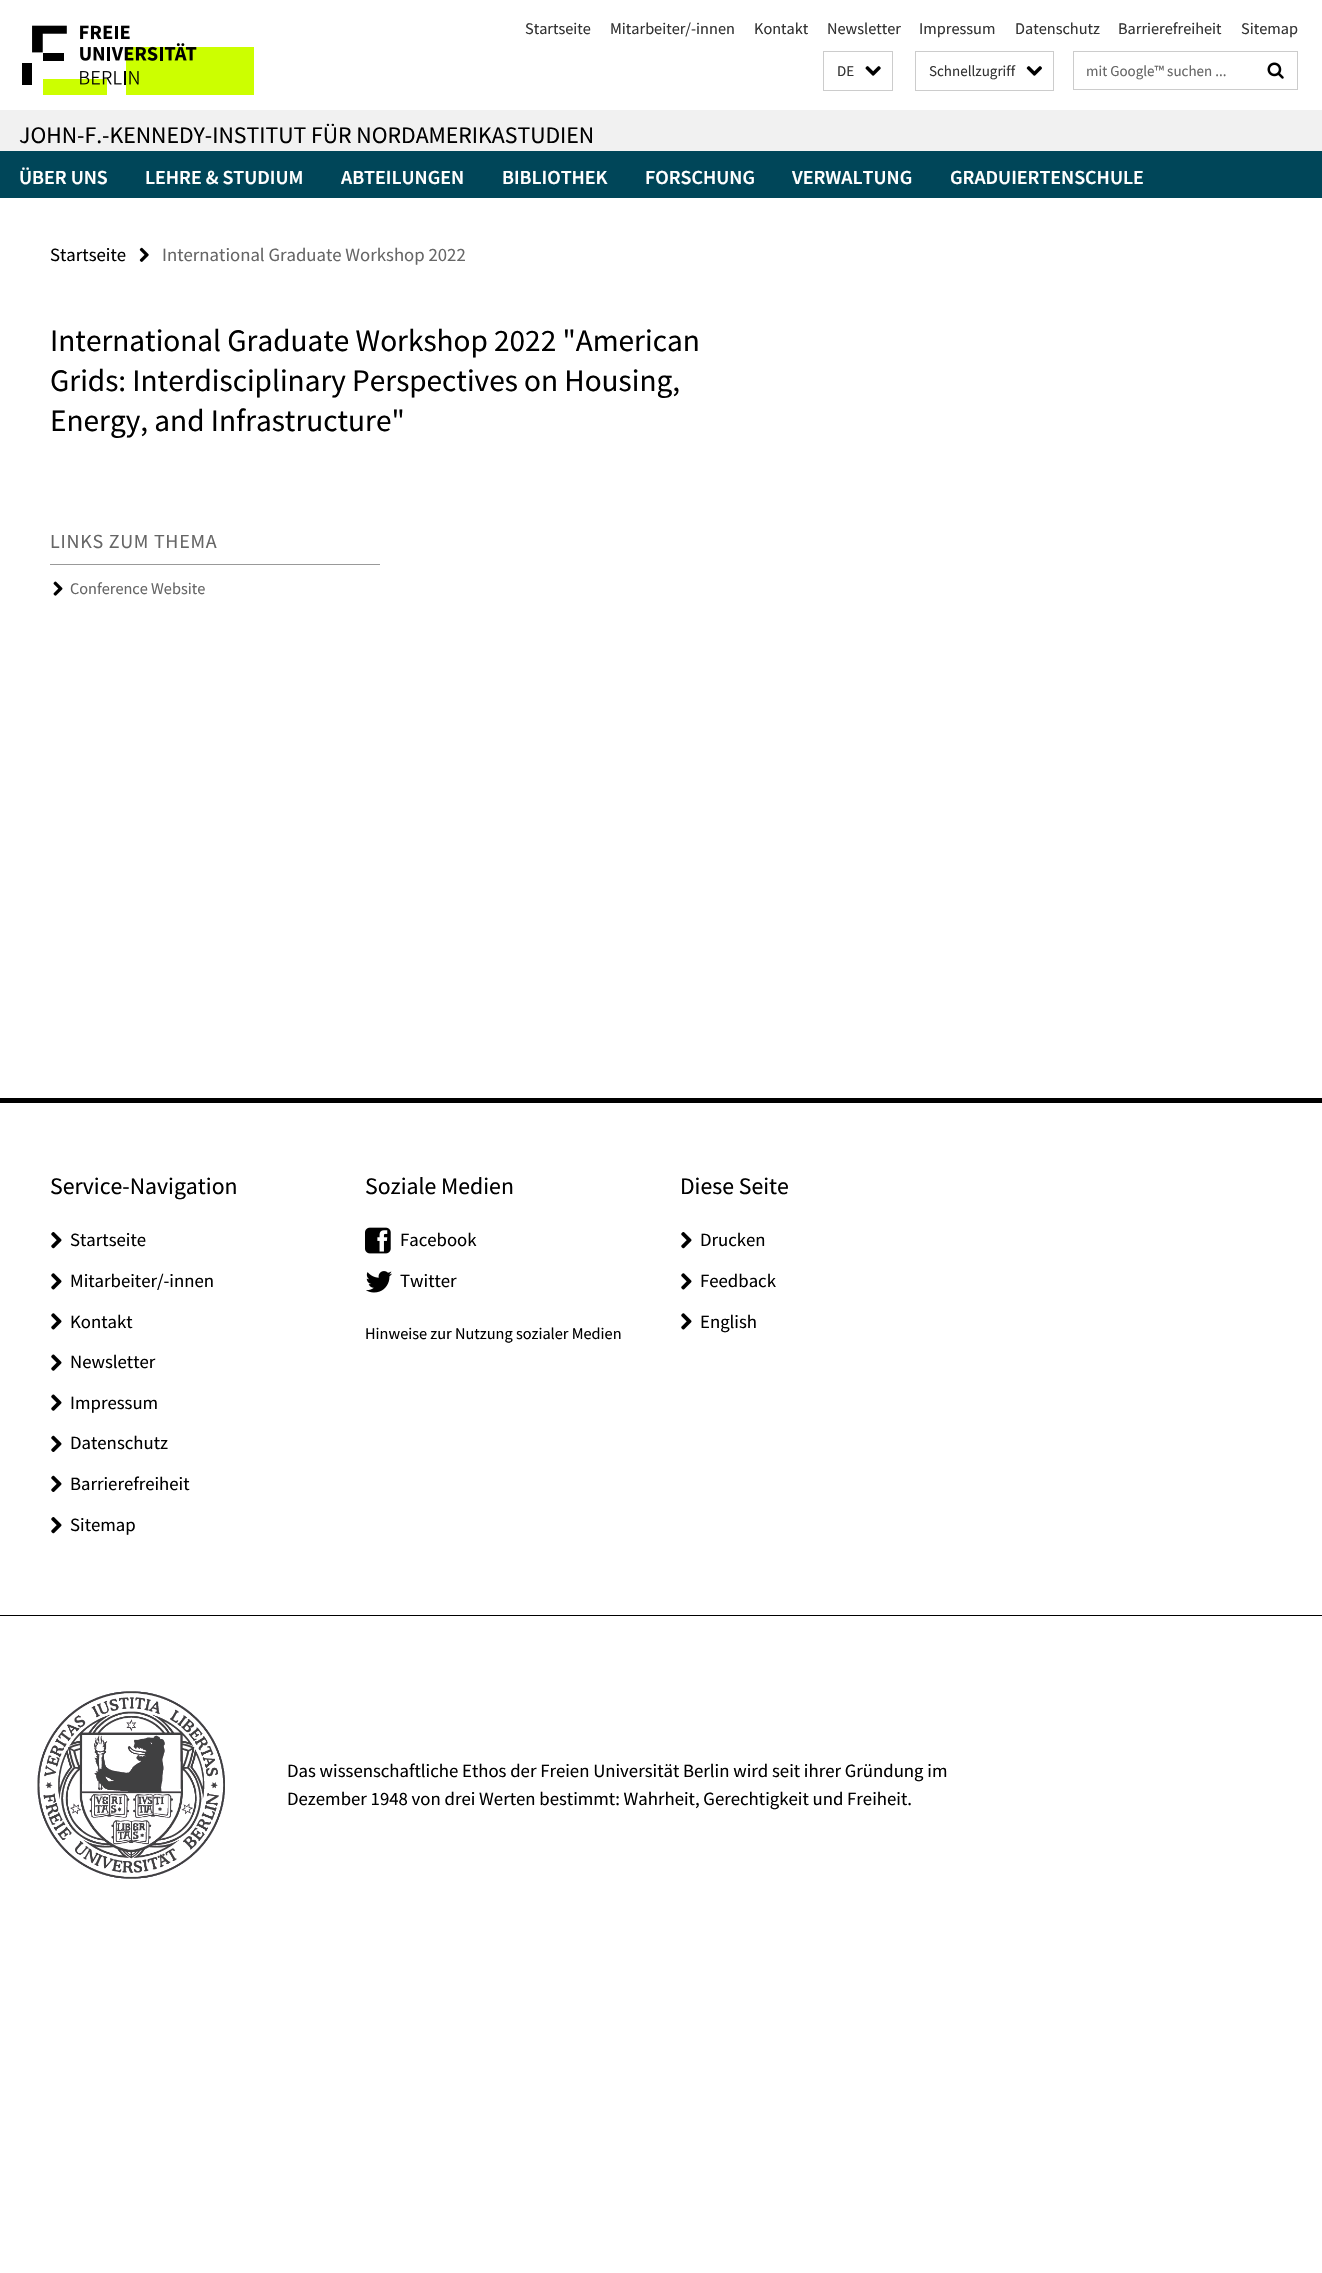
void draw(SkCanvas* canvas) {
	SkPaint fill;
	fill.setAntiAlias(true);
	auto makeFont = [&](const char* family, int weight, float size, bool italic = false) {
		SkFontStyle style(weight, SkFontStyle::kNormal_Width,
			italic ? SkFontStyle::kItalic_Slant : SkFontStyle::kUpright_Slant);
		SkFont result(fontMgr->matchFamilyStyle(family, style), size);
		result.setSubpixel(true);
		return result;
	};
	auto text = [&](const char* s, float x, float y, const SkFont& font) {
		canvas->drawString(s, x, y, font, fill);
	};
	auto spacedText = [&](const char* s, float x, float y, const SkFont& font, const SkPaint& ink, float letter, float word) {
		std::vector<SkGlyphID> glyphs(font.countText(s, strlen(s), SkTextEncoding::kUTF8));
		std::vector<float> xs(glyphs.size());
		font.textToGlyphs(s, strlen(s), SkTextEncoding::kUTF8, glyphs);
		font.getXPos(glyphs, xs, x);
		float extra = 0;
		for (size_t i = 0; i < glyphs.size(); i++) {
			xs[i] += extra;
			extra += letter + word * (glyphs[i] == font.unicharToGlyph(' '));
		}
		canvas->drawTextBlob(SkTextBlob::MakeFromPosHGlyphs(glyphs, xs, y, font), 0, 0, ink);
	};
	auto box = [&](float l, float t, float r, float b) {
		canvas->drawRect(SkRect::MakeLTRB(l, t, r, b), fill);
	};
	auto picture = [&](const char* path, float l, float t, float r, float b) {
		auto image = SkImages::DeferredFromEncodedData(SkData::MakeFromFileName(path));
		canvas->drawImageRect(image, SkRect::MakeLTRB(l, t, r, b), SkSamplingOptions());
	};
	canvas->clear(0xFFFFFFFF);
	picture("image0.png", 22, 25, 254, 95);
	fill.setStyle(SkPaint::kStroke_Style);
	fill.setStrokeWidth(1);
	fill.setColor(0xFFCCCCCC);
	canvas->drawRect(SkRect::MakeLTRB(823.5f, 51.5f, 892.5f, 90.5f), fill);
	picture("image1.png", 865, 66, 881, 76);
	canvas->drawRect(SkRect::MakeLTRB(915.5f, 51.5f, 1053.5f, 90.5f), fill);
	picture("image2.png", 1026, 66, 1042, 76);
	canvas->drawRect(SkRect::MakeLTRB(1073.5f, 51.5f, 1297.5f, 89.5f), fill);
	picture("image3.png", 1267, 62, 1284, 79);
	fill.setStyle(SkPaint::kFill_Style);
	fill.setColor(0xFFF1F1F1);
	box(0, 110, 1322, 151);
	fill.setColor(0xFF004659);
	box(0, 151, 1322, 198);
	picture("image4.png", 139, 247, 149, 262);
	fill.setColor(0xFF999999);
	box(50, 564, 380, 565);
	picture("image5.png", 53, 581, 63, 596);
	fill.setColor(0xFF000000);
	box(0, 1098, 1322, 1103);
	box(0, 1615, 1322, 1616);
	picture("image6.png", 51, 1232, 62, 1249);
	picture("image7.png", 51, 1273, 62, 1290);
	picture("image7.png", 51, 1313, 62, 1330);
	picture("image8.png", 51, 1354, 62, 1371);
	picture("image8.png", 51, 1394, 62, 1411);
	picture("image9.png", 51, 1435, 62, 1452);
	picture("image9.png", 51, 1475, 62, 1492);
	picture("image6.png", 51, 1517, 62, 1534);
	picture("image10.png", 365, 1227, 391, 1254);
	picture("image11.png", 366, 1271, 392, 1293);
	picture("image6.png", 681, 1232, 692, 1249);
	picture("image7.png", 681, 1273, 692, 1290);
	picture("image7.png", 681, 1313, 692, 1330);
	picture("image12.png", 37, 1691, 225, 1879);
	auto font1 = makeFont("Source Sans Pro", 400, 16.25f);
	fill.setColor(0xFF333333);
	text("Startseite", 525, 34, font1);
	text("Mitarbeiter/-innen", 610, 34, font1);
	text("Kontakt", 754, 34, font1);
	text("Newsletter", 827, 34, font1);
	text("Impressum", 919, 34, font1);
	text("Datenschutz", 1015, 34, font1);
	text("Barrierefreiheit", 1118, 34, font1);
	text("Sitemap", 1241, 34, font1);
	auto font2 = makeFont("Source Sans Pro", 400, 15);
	text("DE", 837, 76, font2);
	text("Schnellzugriff", 929, 76, font2);
	fill.setColor(0xFF666666);
	text("mit Google™ suchen ...", 1086, 76, font2);
	auto font3 = makeFont("Source Sans Pro", 400, 23.75f);
	fill.setColor(0xFF000000);
	text("JOHN-F.-KENNEDY-INSTITUT FÜR NORDAMERIKASTUDIEN", 19, 143, font3);
	auto font4 = makeFont("Source Sans Pro", 600, 20);
	fill.setColor(0xFFFFFFFF);
	text("ÜBER UNS", 19, 184, font4);
	text("LEHRE & STUDIUM", 145, 184, font4);
	text("ABTEILUNGEN", 341, 184, font4);
	text("BIBLIOTHEK", 502, 184, font4);
	text("FORSCHUNG", 645, 184, font4);
	text("VERWALTUNG", 792, 184, font4);
	text("GRADUIERTENSCHULE", 950, 184, font4);
	auto font5 = makeFont("Source Sans Pro", 400, 18.75f);
	fill.setColor(0xFF000000);
	text("Startseite", 50, 261, font5);
	fill.setColor(0xFF666666);
	text("International Graduate Workshop 2022", 162, 261, font5);
	auto font6 = makeFont("Source Sans Pro", 400, 31.25f);
	fill.setColor(0xFF000000);
	text("International Graduate Workshop 2022 \"American", 50, 351, font6);
	text("Grids: Interdisciplinary Perspectives on Housing,", 50, 391, font6);
	text("Energy, and Infrastructure\"", 50, 431, font6);
	auto font7 = makeFont("Source Sans Pro", 400, 20);
	fill.setColor(0xFF666666);
	spacedText("LINKS ZUM THEMA", 50, 548, font7, fill, 0.75f, 0);
	text("Conference Website", 70, 594, font1);
	fill.setColor(0xFF000000);
	text("Service-Navigation", 50, 1194, font3);
	text("Startseite", 70, 1246, font5);
	text("Mitarbeiter/-innen", 70, 1287, font5);
	text("Kontakt", 70, 1328, font5);
	text("Newsletter", 70, 1368, font5);
	text("Impressum", 70, 1409, font5);
	text("Datenschutz", 70, 1449, font5);
	text("Barrierefreiheit", 70, 1490, font5);
	text("Sitemap", 70, 1531, font5);
	text("Soziale Medien", 365, 1194, font3);
	text("Facebook", 400, 1246, font5);
	text("Twitter", 400, 1287, font5);
	text("Hinweise zur Nutzung sozialer Medien", 365, 1339, font1);
	text("Diese Seite", 680, 1194, font3);
	text("Drucken", 700, 1246, font5);
	text("Feedback", 700, 1287, font5);
	text("English", 700, 1328, font5);
	text("Das wissenschaftliche Ethos der Freien Universität Berlin wird seit ihrer Gründung im", 287, 1777, font5);
	text("Dezember 1948 von drei Werten bestimmt: Wahrheit, Gerechtigkeit und Freiheit.", 287, 1805, font5);
}
